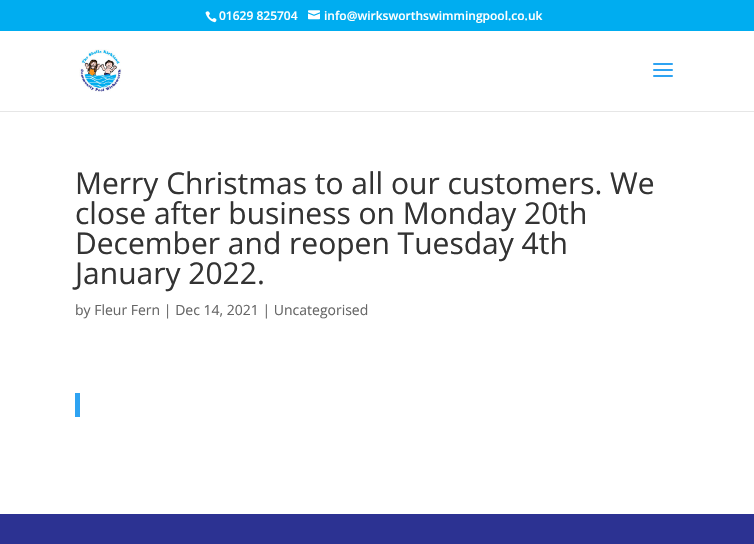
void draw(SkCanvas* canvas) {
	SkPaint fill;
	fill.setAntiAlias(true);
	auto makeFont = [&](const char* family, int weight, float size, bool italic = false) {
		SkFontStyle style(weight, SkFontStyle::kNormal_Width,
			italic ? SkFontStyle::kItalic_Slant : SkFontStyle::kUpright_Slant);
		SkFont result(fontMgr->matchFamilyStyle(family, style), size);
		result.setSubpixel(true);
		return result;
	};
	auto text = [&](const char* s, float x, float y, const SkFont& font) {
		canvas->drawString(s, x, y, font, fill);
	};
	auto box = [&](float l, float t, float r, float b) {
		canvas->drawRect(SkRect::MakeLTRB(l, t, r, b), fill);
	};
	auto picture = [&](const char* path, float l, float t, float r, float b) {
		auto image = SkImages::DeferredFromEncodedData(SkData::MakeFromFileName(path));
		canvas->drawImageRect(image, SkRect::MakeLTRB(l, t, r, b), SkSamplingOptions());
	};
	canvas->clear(0xFFFFFFFF);
	fill.setColor(0xFF00ADF0);
	box(0, 0, 754, 31);
	picture("image0.png", 205, 11, 217, 23);
	picture("image1.png", 308, 10, 320, 20);
	fill.setColor(0xFFE6E6E6);
	box(0, 111, 754, 112);
	picture("image2.png", 79, 49, 122, 92);
	picture("image3.png", 653, 63, 673, 77);
	fill.setColor(0xFF2EA3F2);
	box(75, 393, 80, 417);
	fill.setColor(0xFF2C3292);
	box(0, 514, 754, 544);
	auto font1 = makeFont("Open Sans", 600, 12);
	fill.setColor(0xFFFFFFFF);
	text("01629 825704", 219, 20, font1);
	text("info@wirksworthswimmingpool.co.uk", 324, 20, font1);
	auto font2 = makeFont("Open Sans", 400, 30);
	fill.setColor(0xFF333333);
	text("Merry Christmas to all our customers. We", 75, 194, font2);
	text("close after business on Monday 20th", 75, 224, font2);
	text("December and reopen Tuesday 4th", 75, 254, font2);
	text("January 2022.", 75, 284, font2);
	auto font3 = makeFont("Open Sans", 400, 14);
	fill.setColor(0xFF666666);
	text("by Fleur Fern | Dec 14, 2021 | Uncategorised", 75, 315, font3);
}
